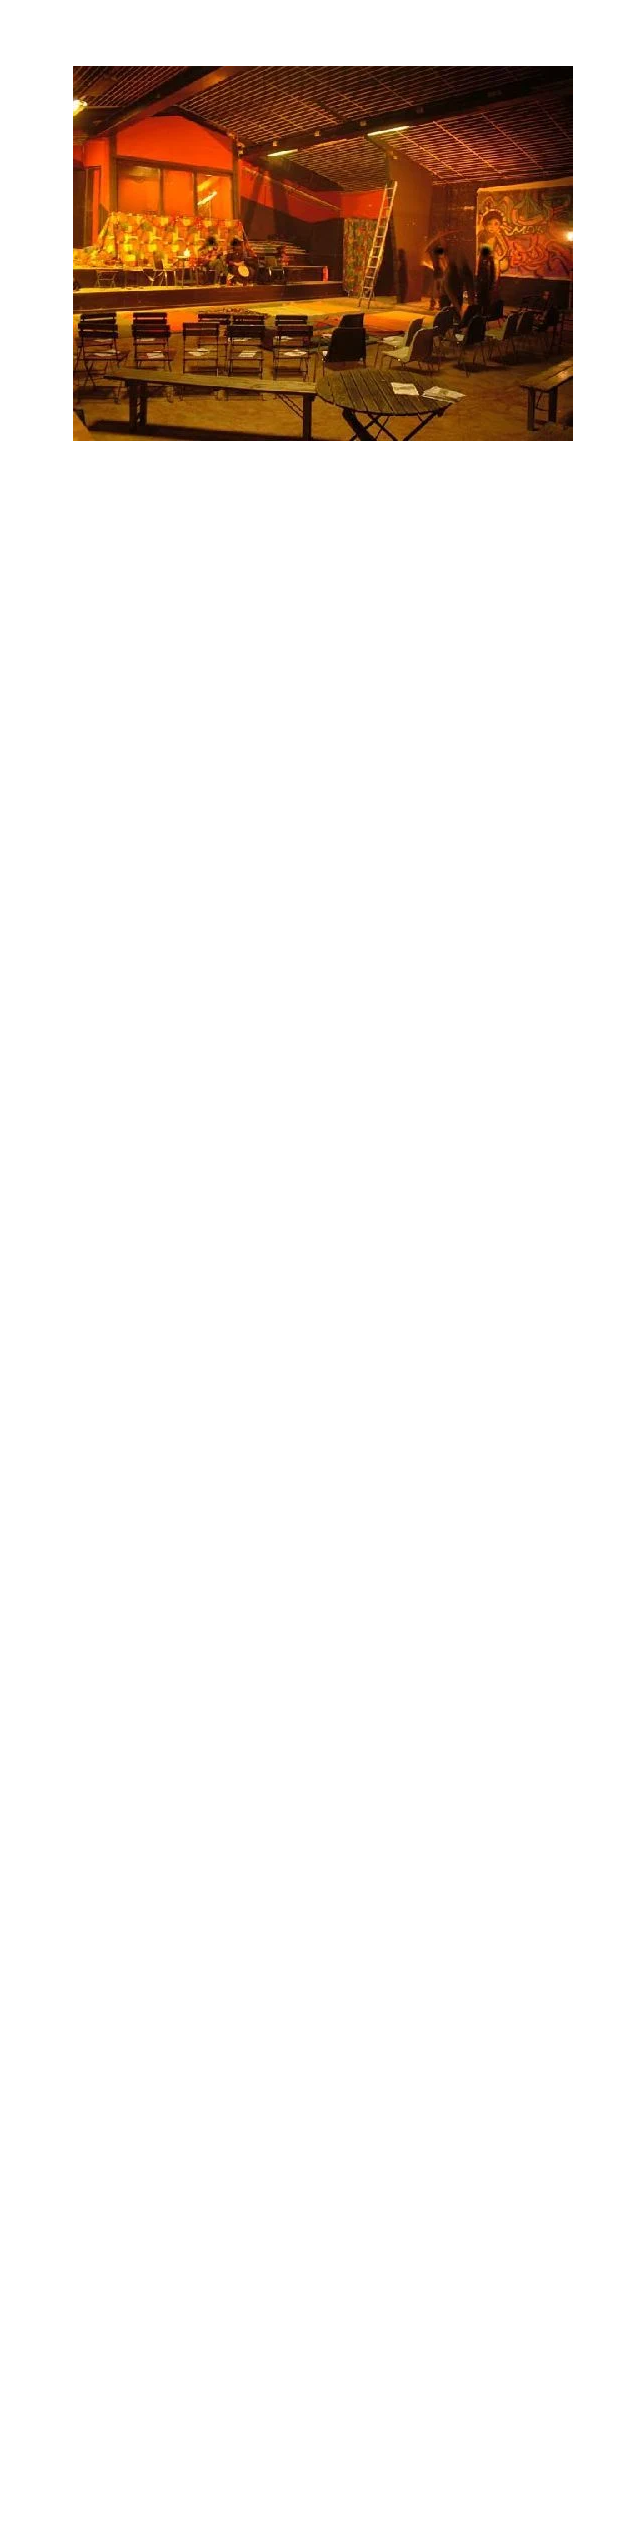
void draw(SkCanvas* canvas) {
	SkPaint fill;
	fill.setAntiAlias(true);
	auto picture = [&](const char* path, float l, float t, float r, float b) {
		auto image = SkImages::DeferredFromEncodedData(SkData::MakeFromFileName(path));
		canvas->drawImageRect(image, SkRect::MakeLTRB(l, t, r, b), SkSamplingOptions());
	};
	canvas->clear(0xFFFFFFFF);
	picture("image0.png", 73, 66, 573, 441);
}
